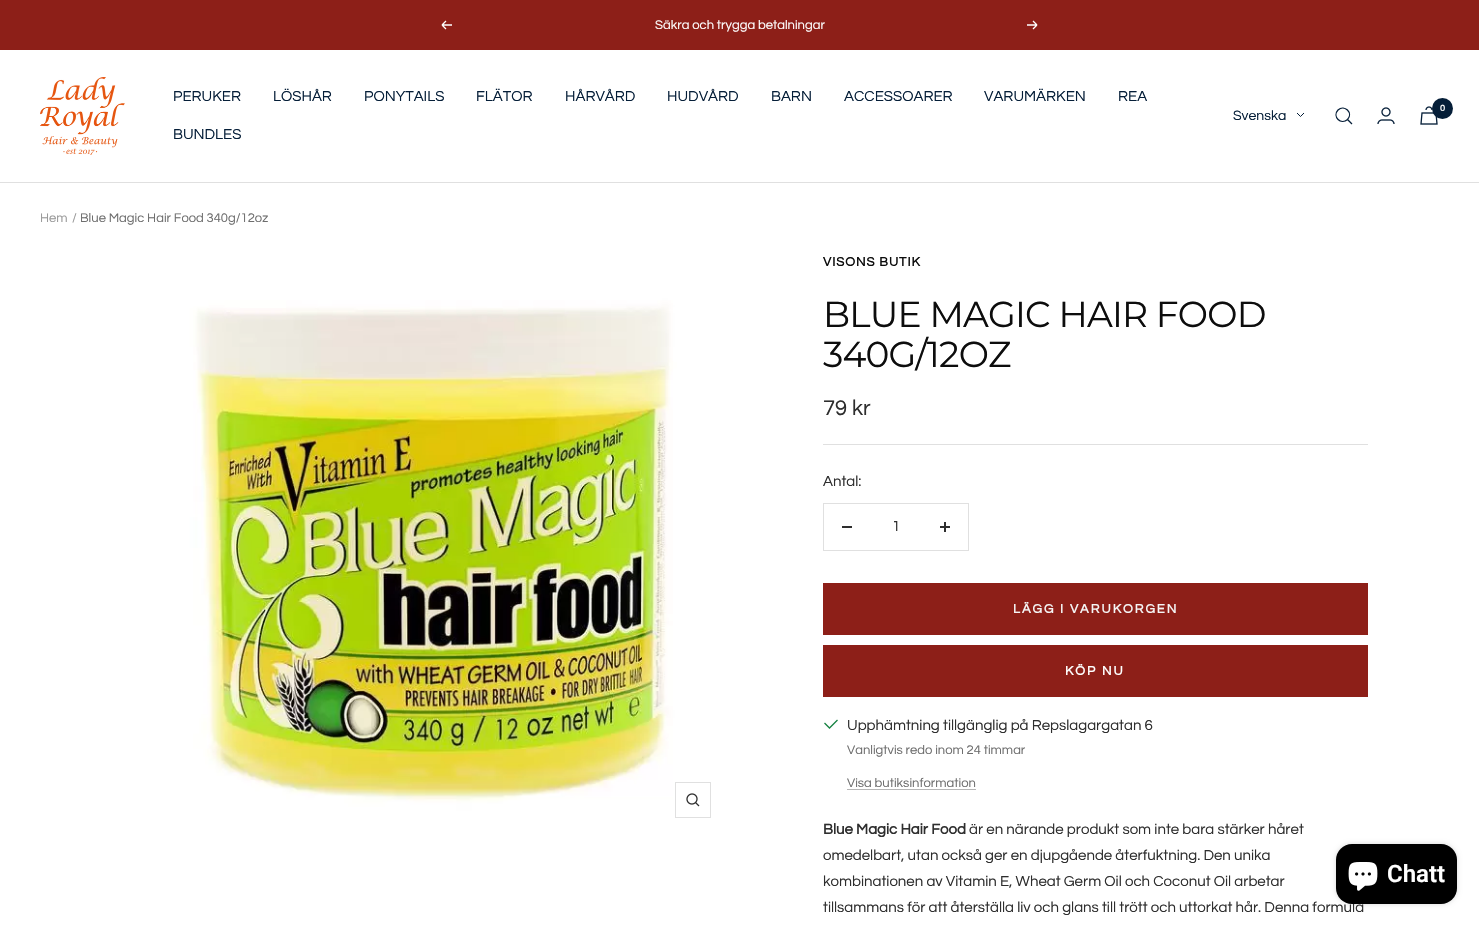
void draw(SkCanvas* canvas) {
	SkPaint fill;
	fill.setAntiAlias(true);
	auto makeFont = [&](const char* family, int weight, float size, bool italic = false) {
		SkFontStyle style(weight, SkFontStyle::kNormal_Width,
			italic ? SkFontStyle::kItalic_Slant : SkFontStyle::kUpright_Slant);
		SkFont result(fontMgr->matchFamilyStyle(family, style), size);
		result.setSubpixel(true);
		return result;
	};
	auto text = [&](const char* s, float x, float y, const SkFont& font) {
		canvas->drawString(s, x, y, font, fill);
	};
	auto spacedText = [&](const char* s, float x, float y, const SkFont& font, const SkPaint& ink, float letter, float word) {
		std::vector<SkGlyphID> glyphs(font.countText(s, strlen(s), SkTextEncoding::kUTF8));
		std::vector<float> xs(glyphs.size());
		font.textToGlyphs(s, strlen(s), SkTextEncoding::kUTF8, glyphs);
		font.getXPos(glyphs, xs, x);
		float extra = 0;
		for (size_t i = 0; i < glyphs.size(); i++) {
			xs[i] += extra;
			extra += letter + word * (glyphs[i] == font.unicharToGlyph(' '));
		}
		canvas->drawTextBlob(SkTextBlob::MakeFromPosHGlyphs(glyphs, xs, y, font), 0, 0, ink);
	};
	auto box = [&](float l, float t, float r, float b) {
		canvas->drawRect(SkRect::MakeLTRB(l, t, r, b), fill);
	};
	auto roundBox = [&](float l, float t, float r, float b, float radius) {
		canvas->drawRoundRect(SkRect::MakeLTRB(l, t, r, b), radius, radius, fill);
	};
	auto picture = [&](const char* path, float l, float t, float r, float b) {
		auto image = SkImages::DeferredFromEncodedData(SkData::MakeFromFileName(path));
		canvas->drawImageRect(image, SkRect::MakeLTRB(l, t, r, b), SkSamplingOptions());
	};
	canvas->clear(0xFFFFFFFF);
	fill.setColor(0xFF8D1F18);
	box(0, 0, 1479, 50);
	fill.setStyle(SkPaint::kStroke_Style);
	fill.setStrokeWidth(1.3f);
	fill.setColor(0xFFFFFFFF);
	canvas->drawPath(SkPathBuilder().moveTo(452, 25).lineTo(442, 25).moveTo(442, 25).lineTo(446, 29).moveTo(442, 25).lineTo(446, 21).detach(), fill);
	canvas->drawPath(SkPathBuilder().moveTo(1027, 25).lineTo(1037, 25).moveTo(1037, 25).lineTo(1033, 29).moveTo(1037, 25).lineTo(1033, 21).detach(), fill);
	fill.setStyle(SkPaint::kFill_Style);
	fill.setColor(0xFFE0E0E0);
	box(0, 182, 1479, 183);
	picture("image0.png", 40, 77, 125, 155);
	fill.setStyle(SkPaint::kStroke_Style);
	fill.setColor(0xFF051E38);
	canvas->drawPath(SkPathBuilder().moveTo(1347.5f, 119.5f).cubicTo(1353.5f, 113, 1344.5f, 104, 1338, 110).cubicTo(1332, 116.5f, 1341, 125.5f, 1347.5f, 119.5f).close().moveTo(1347.5f, 119.5f).lineTo(1352, 124).detach(), fill);
	picture("image1.png", 1377, 107, 1395, 124);
	picture("image2.png", 1420, 106, 1438, 125);
	fill.setStyle(SkPaint::kFill_Style);
	canvas->drawCircle(1442.5f, 108.5f, 10.5f, fill);
	fill.setStyle(SkPaint::kStroke_Style);
	fill.setStrokeWidth(1);
	canvas->drawPath(SkPathBuilder().moveTo(1297, 113).lineTo(1300.5f, 116.5f).lineTo(1304, 113).detach(), fill);
	picture("image3.png", 147, 254, 727, 834);
	fill.setColor(0xFFE0E0E0);
	canvas->drawRect(SkRect::MakeLTRB(675.5f, 782.5f, 710.5f, 817.5f), fill);
	picture("image4.png", 686, 793, 700, 807);
	fill.setStyle(SkPaint::kFill_Style);
	box(823, 444, 1368, 445);
	fill.setStyle(SkPaint::kStroke_Style);
	canvas->drawRect(SkRect::MakeLTRB(823.5f, 503.5f, 968.5f, 550.5f), fill);
	fill.setStyle(SkPaint::kFill_Style);
	fill.setColor(0xFF2E2E2E);
	box(842, 526, 852, 528);
	picture("image5.png", 940, 522, 950, 532);
	fill.setColor(0xFF8D1F18);
	box(823, 583, 1368, 635);
	box(823, 645, 1368, 697);
	fill.setStyle(SkPaint::kStroke_Style);
	fill.setStrokeWidth(1.3f);
	fill.setColor(0xFF168342);
	canvas->drawPath(SkPathBuilder().moveTo(824.5f, 723).lineTo(829.5f, 728).lineTo(837.5f, 720).detach(), fill);
	fill.setStyle(SkPaint::kFill_Style);
	fill.setColor(0xFFB6B6B6);
	box(847, 789, 976, 790);
	fill.setColor(0x26000000);
	fill.setMaskFilter(SkMaskFilter::MakeBlur(kNormal_SkBlurStyle, 2.5f));
	canvas->drawRoundRect(SkRect::MakeLTRB(1336, 844, 1457, 904), 16, 16, fill);
	fill.setMaskFilter(nullptr);
	auto font1 = makeFont("Questrial", 400, 13);
	fill.setColor(0xFFFFFFFF);
	text("Säkra och trygga betalningar", 655, 29, font1);
	auto font2 = makeFont("Questrial", 400, 15);
	fill.setColor(0xFF051E38);
	text("PERUKER", 173, 101, font2);
	text("LÖSHÅR", 273, 101, font2);
	text("PONYTAILS", 364, 101, font2);
	text("FLÄTOR", 476, 101, font2);
	text("HÅRVÅRD", 565, 101, font2);
	text("HUDVÅRD", 667, 101, font2);
	text("BARN", 771, 101, font2);
	text("ACCESSOARER", 844, 101, font2);
	text("VARUMÄRKEN", 984, 101, font2);
	text("REA", 1118, 101, font2);
	text("BUNDLES", 173, 139, font2);
	auto font3 = makeFont("Questrial", 700, 9);
	fill.setColor(0xFFFFFFFF);
	text("0", 1440, 111, font3);
	auto font4 = makeFont("Questrial", 400, 14);
	fill.setColor(0xFF051E38);
	text("Svenska", 1233, 120, font4);
	fill.setColor(0xFF999999);
	text("Hem", 40, 222, font1);
	text("/", 72, 222, font1);
	fill.setColor(0xFF6D6D6D);
	text("Blue Magic Hair Food 340g/12oz", 80, 222, font1);
	auto font5 = makeFont("Questrial", 700, 13);
	fill.setColor(0xFF0D0D0D);
	spacedText("VISONS BUTIK", 823, 266, font5, fill, 1, 0);
	auto font6 = makeFont("Montserrat", 400, 36);
	spacedText("BLUE MAGIC HAIR FOOD", 823, 327, font6, fill, -0.8f, 0);
	spacedText("340G/12OZ", 823, 367, font6, fill, -0.8f, 0);
	auto font7 = makeFont("Questrial", 400, 22);
	fill.setColor(0xFF2E2E2E);
	text("79 kr", 823, 415, font7);
	text("Antal:", 823, 486, font2);
	text("1", 892, 531, font2);
	fill.setColor(0xFFF5F5F5);
	spacedText("LÄGG I VARUKORGEN", 1013, 613, font5, fill, 2, 0);
	fill.setColor(0xFFFFFFFF);
	spacedText("KÖP NU", 1065, 675, font5, fill, 2, 0);
	fill.setColor(0xFF2E2E2E);
	text("Upphämtning tillgänglig på Repslagargatan 6", 847, 730, font2);
	fill.setColor(0xFF6D6D6D);
	text("Vanligtvis redo inom 24 timmar", 847, 754, font1);
	text("Visa butiksinformation", 847, 787, font1);
	auto font8 = makeFont("Questrial", 700, 15);
	fill.setColor(0xFF2E2E2E);
	text("Blue Magic Hair Food", 823, 834, font8);
	text("är en närande produkt som inte bara stärker håret", 969, 834, font2);
	text("omedelbart, utan också ger en djupgående återfuktning. Den unika", 823, 860, font2);
	text("kombinationen av Vitamin E, Wheat Germ Oil och Coconut Oil arbetar", 823, 886, font2);
	text("tillsammans för att återställa liv och glans till trött och uttorkat hår. Denna formula", 823, 912, font2);
	fill.setColor(0xFF000000);
	roundBox(1336, 844, 1457, 904, 16);
	picture("image6.png", 1348, 862, 1378, 891);
	auto font9 = makeFont("Roboto", 600, 24);
	fill.setColor(0xFFFFFFFF);
	text("Chatt", 1387, 882, font9);
}
